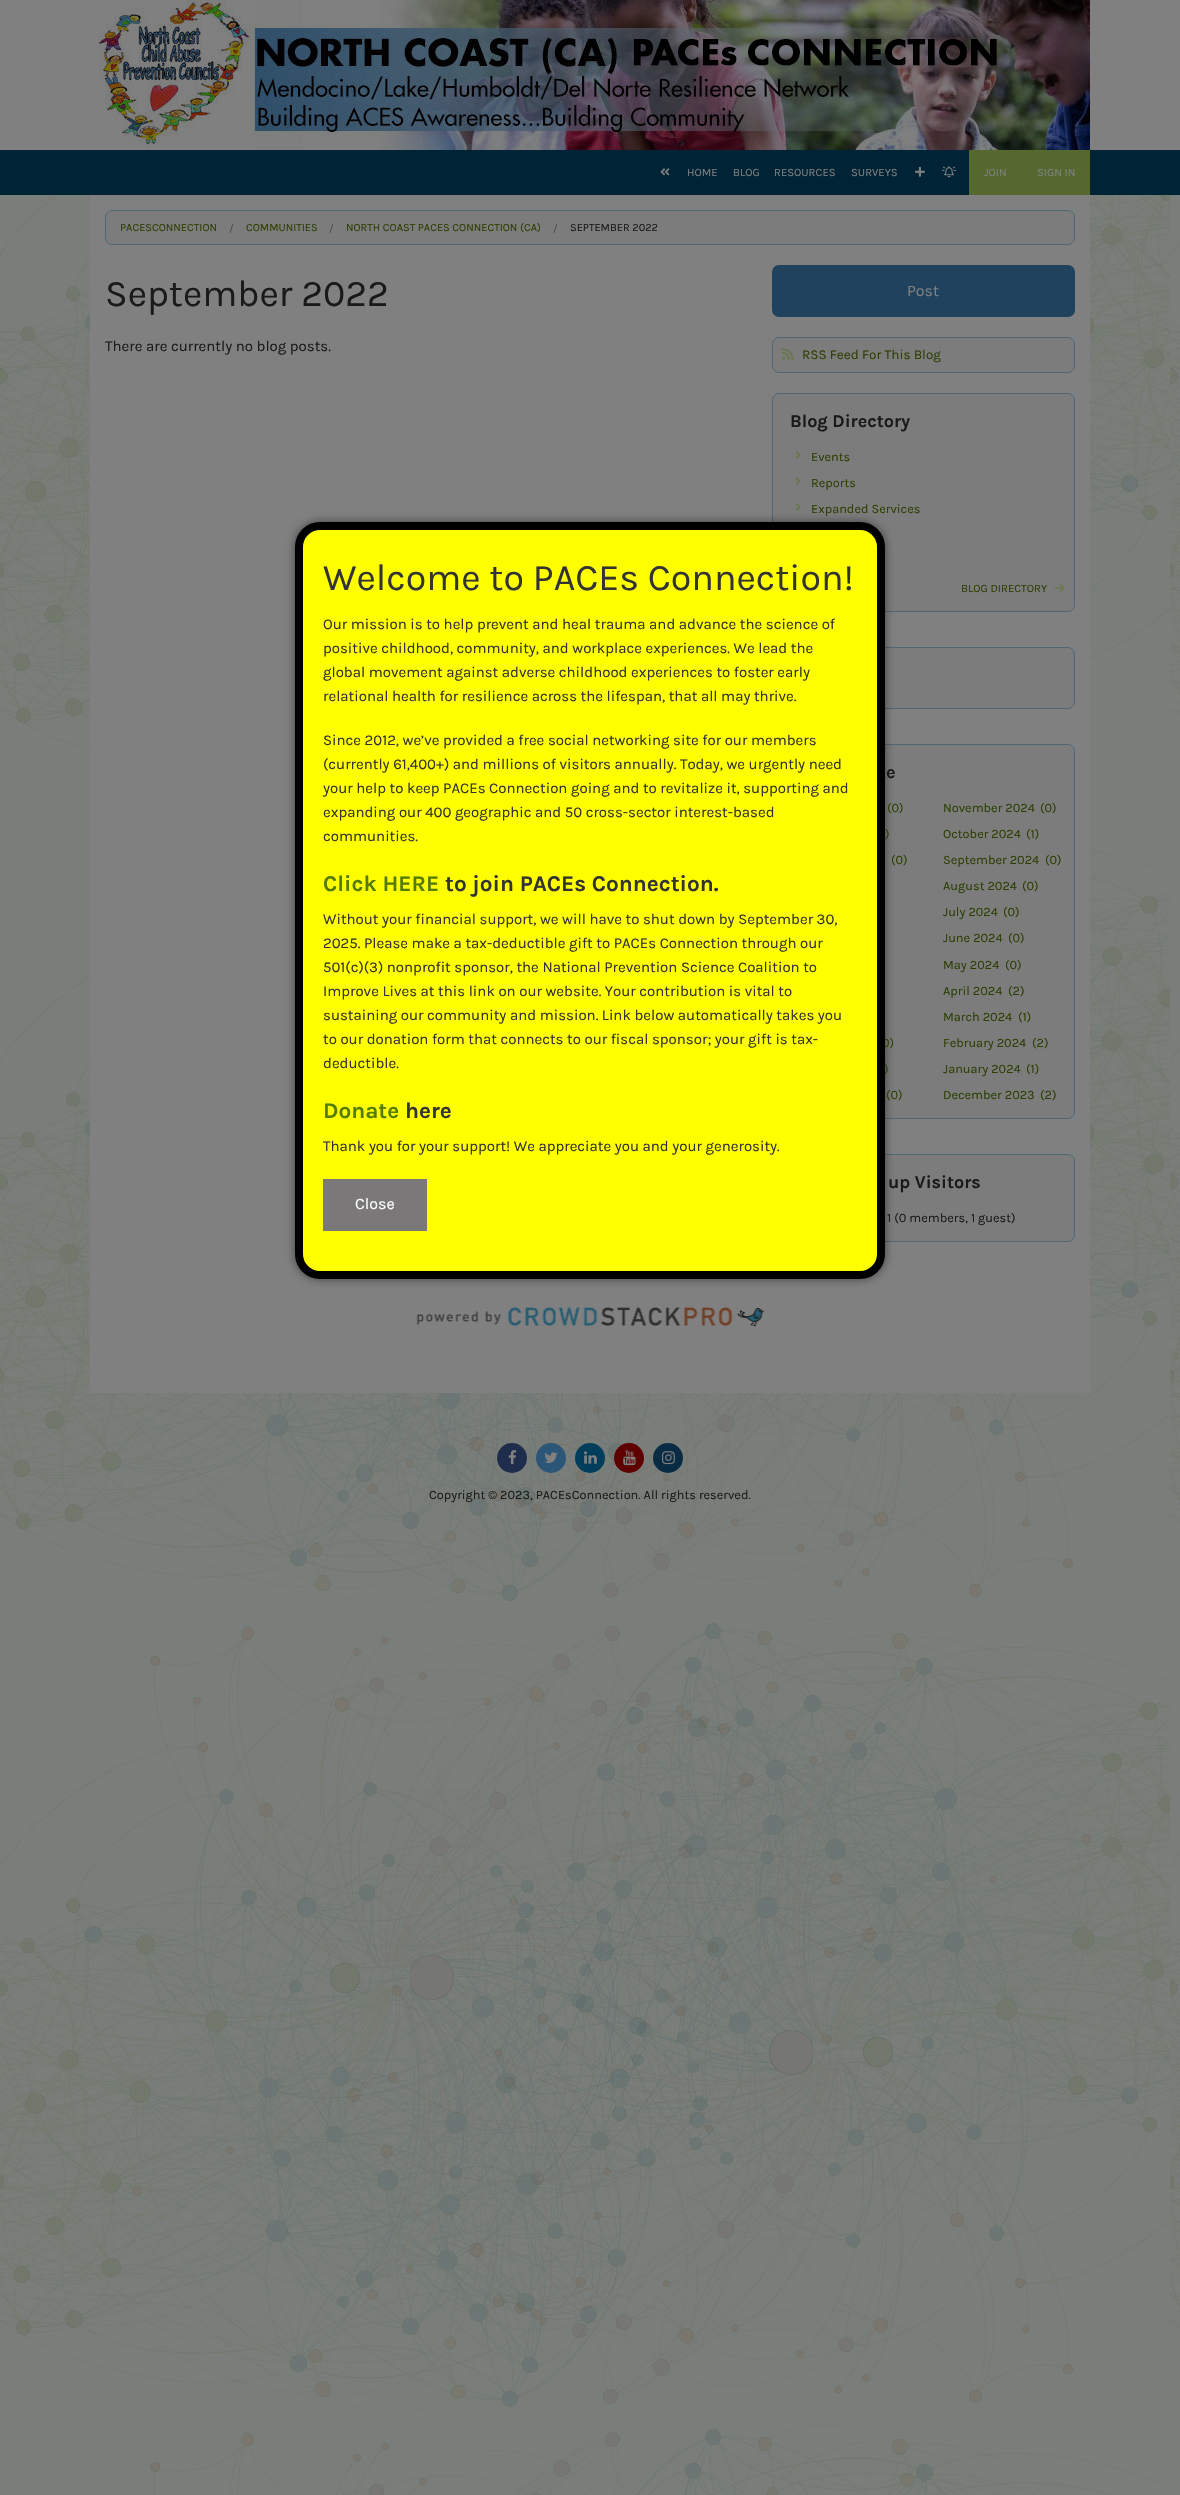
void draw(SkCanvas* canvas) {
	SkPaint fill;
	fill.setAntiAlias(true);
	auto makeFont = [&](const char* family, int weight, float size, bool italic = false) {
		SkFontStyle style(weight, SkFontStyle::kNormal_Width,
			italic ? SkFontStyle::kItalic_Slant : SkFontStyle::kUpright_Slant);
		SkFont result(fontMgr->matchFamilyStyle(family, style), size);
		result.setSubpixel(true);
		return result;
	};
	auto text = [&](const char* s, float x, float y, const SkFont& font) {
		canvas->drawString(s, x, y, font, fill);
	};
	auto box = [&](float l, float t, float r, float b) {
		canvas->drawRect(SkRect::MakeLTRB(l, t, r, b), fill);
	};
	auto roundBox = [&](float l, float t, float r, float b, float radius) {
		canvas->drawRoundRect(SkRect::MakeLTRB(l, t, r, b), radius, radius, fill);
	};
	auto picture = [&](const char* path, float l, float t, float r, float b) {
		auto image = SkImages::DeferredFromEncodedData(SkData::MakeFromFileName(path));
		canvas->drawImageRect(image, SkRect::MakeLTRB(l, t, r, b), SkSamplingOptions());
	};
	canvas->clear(0xFFFFFFFF);
	picture("image0.png", 0, 195, 1180, 2495);
	fill.setColor(0xFF808080);
	box(0, 0, 1180, 150);
	picture("image1.png", 98, 0, 1090, 150);
	fill.setColor(0xFF002435);
	box(0, 150, 1180, 195);
	picture("image2.png", 660, 168, 670, 176);
	picture("image3.png", 915, 166, 925, 177);
	picture("image4.png", 942, 166, 956, 178);
	fill.setColor(0xFF55692F);
	box(969, 150, 1090, 195);
	fill.setColor(0xFF808080);
	box(90, 195, 1090, 1287);
	fill.setColor(0xFF7C7C7C);
	canvas->drawRoundRect(SkRect::MakeLTRB(105.5f, 210.5f, 1074.5f, 244.5f), 6.5f, 6.5f, fill);
	fill.setStyle(SkPaint::kStroke_Style);
	fill.setStrokeWidth(1);
	fill.setColor(0xFF4F6773);
	canvas->drawRoundRect(SkRect::MakeLTRB(105.5f, 210.5f, 1074.5f, 244.5f), 6.5f, 6.5f, fill);
	fill.setStyle(SkPaint::kFill_Style);
	fill.setColor(0xFF20425D);
	roundBox(772, 265, 1075, 317, 7);
	fill.setColor(0xFF7C7C7C);
	canvas->drawRoundRect(SkRect::MakeLTRB(772.5f, 337.5f, 1074.5f, 372.5f), 6.5f, 6.5f, fill);
	fill.setStyle(SkPaint::kStroke_Style);
	fill.setColor(0xFF4F6773);
	canvas->drawRoundRect(SkRect::MakeLTRB(772.5f, 337.5f, 1074.5f, 372.5f), 6.5f, 6.5f, fill);
	picture("image5.png", 782, 348, 794, 360);
	fill.setStyle(SkPaint::kFill_Style);
	fill.setColor(0xFF7C7C7C);
	canvas->drawRoundRect(SkRect::MakeLTRB(772.5f, 393.5f, 1074.5f, 611.5f), 6.5f, 6.5f, fill);
	fill.setStyle(SkPaint::kStroke_Style);
	fill.setColor(0xFF4F6773);
	canvas->drawRoundRect(SkRect::MakeLTRB(772.5f, 393.5f, 1074.5f, 611.5f), 6.5f, 6.5f, fill);
	picture("image6.png", 795, 451, 801, 460);
	picture("image6.png", 795, 477, 801, 486);
	picture("image6.png", 795, 503, 801, 512);
	picture("image7.png", 1055, 583, 1065, 593);
	fill.setStyle(SkPaint::kFill_Style);
	fill.setColor(0xFF7C7C7C);
	canvas->drawRoundRect(SkRect::MakeLTRB(772.5f, 647.5f, 1074.5f, 708.5f), 6.5f, 6.5f, fill);
	fill.setStyle(SkPaint::kStroke_Style);
	fill.setColor(0xFF4F6773);
	canvas->drawRoundRect(SkRect::MakeLTRB(772.5f, 647.5f, 1074.5f, 708.5f), 6.5f, 6.5f, fill);
	fill.setStyle(SkPaint::kFill_Style);
	fill.setColor(0xFF7C7C7C);
	canvas->drawRoundRect(SkRect::MakeLTRB(772.5f, 744.5f, 1074.5f, 1118.5f), 6.5f, 6.5f, fill);
	fill.setStyle(SkPaint::kStroke_Style);
	fill.setColor(0xFF4F6773);
	canvas->drawRoundRect(SkRect::MakeLTRB(772.5f, 744.5f, 1074.5f, 1118.5f), 6.5f, 6.5f, fill);
	fill.setStyle(SkPaint::kFill_Style);
	fill.setColor(0xFF7C7C7C);
	canvas->drawRoundRect(SkRect::MakeLTRB(772.5f, 1154.5f, 1074.5f, 1241.5f), 6.5f, 6.5f, fill);
	fill.setStyle(SkPaint::kStroke_Style);
	fill.setColor(0xFF4F6773);
	canvas->drawRoundRect(SkRect::MakeLTRB(772.5f, 1154.5f, 1074.5f, 1241.5f), 6.5f, 6.5f, fill);
	fill.setStyle(SkPaint::kFill_Style);
	fill.setColor(0xFF808080);
	box(416, 1307, 765, 1327);
	picture("image8.png", 416, 1307, 765, 1327);
	fill.setColor(0xFF1E2D4C);
	canvas->drawCircle(512, 1458, 15, fill);
	picture("image9.png", 508, 1450, 517, 1465);
	fill.setColor(0xFF2B5677);
	canvas->drawCircle(551, 1458, 15, fill);
	picture("image10.png", 544, 1452, 558, 1463);
	fill.setColor(0xFF003E5B);
	canvas->drawCircle(590, 1458, 15, fill);
	picture("image11.png", 584, 1451, 597, 1464);
	fill.setColor(0xFF5E0000);
	canvas->drawCircle(629, 1458, 15, fill);
	picture("image12.png", 623, 1450, 636, 1466);
	fill.setColor(0xFF092B44);
	canvas->drawCircle(668, 1458, 15, fill);
	picture("image13.png", 662, 1451, 675, 1465);
	fill.setColor(0x80000000);
	fill.setMaskFilter(SkMaskFilter::MakeBlur(kNormal_SkBlurStyle, 5));
	canvas->drawRoundRect(SkRect::MakeLTRB(295, 522, 885, 1279), 25, 25, fill);
	fill.setMaskFilter(nullptr);
	auto font1 = makeFont("Karla", 400, 11.25f);
	fill.setColor(0xFF808080);
	text("HOME", 687, 176, font1);
	text("BLOG", 733, 176, font1);
	text("RESOURCES", 774, 176, font1);
	text("SURVEYS", 851, 176, font1);
	text("JOIN", 984, 176, font1);
	text("SIGN IN", 1037, 176, font1);
	auto font2 = makeFont("Karla", 400, 11);
	fill.setColor(0xFF2B3F03);
	text("PACESCONNECTION", 120, 231, font2);
	fill.setColor(0xFF4B4B4B);
	text("/", 229, 232, font2);
	fill.setColor(0xFF2B3F03);
	text("COMMUNITIES", 246, 231, font2);
	fill.setColor(0xFF4B4B4B);
	text("/", 329, 232, font2);
	fill.setColor(0xFF2B3F03);
	text("NORTH COAST PACES CONNECTION (CA)", 346, 231, font2);
	fill.setColor(0xFF4B4B4B);
	text("/", 553, 232, font2);
	fill.setColor(0xFF1A1A1A);
	text("SEPTEMBER 2022", 570, 231, font2);
	auto font3 = makeFont("Karla", 400, 37.5f);
	text("September 2022", 105, 306, font3);
	auto font4 = makeFont("Karla", 400, 15);
	text("There are currently no blog posts.", 105, 351, font4);
	auto font5 = makeFont("Karla", 400, 16);
	fill.setColor(0xFF808080);
	text("Post", 907, 296, font5);
	auto font6 = makeFont("Karla", 400, 13.5f);
	fill.setColor(0xFF2B3F03);
	text("RSS Feed For This Blog", 802, 359, font6);
	auto font7 = makeFont("Karla", 700, 18);
	fill.setColor(0xFF1A1A1A);
	text("Blog Directory", 790, 427, font7);
	auto font8 = makeFont("Karla", 400, 12.75f);
	fill.setColor(0xFF2B3F03);
	text("Events", 811, 461, font8);
	text("Reports", 811, 487, font8);
	text("Expanded Services", 811, 513, font8);
	text("BLOG DIRECTORY", 961, 592, font1);
	fill.setColor(0xFF1A1A1A);
	text("e", 886, 778, font7);
	fill.setColor(0xFF2B3F03);
	text("(0)", 887, 812, font8);
	text(")", 885, 838, font8);
	text("(0)", 891, 864, font8);
	text("0)", 882, 1047, font8);
	text(")", 884, 1073, font8);
	text("(0)", 886, 1099, font8);
	text("November 2024", 943, 812, font8);
	text("(0)", 1040, 812, font8);
	text("October 2024", 943, 838, font8);
	text("(1)", 1026, 838, font8);
	text("September 2024", 943, 864, font8);
	text("(0)", 1045, 864, font8);
	text("August 2024", 943, 890, font8);
	text("(0)", 1022, 890, font8);
	text("July 2024", 943, 916, font8);
	text("(0)", 1003, 916, font8);
	text("June 2024", 943, 942, font8);
	text("(0)", 1008, 942, font8);
	text("May 2024", 943, 969, font8);
	text("(0)", 1005, 969, font8);
	text("April 2024", 943, 995, font8);
	text("(2)", 1008, 995, font8);
	text("March 2024", 943, 1021, font8);
	text("(1)", 1018, 1021, font8);
	text("February 2024", 943, 1047, font8);
	text("(2)", 1032, 1047, font8);
	text("January 2024", 943, 1073, font8);
	text("(1)", 1026, 1073, font8);
	text("December 2023", 943, 1099, font8);
	text("(2)", 1040, 1099, font8);
	fill.setColor(0xFF1A1A1A);
	text("up Visitors", 888, 1188, font7);
	text("1 (0 members, 1 guest)", 887, 1222, font8);
	text("Copyright © 2023, PACEsConnection. All rights reserved.", 429, 1499, font8);
	fill.setColor(0xFFFFFF00);
	canvas->drawRoundRect(SkRect::MakeLTRB(299, 526, 881, 1275), 21, 21, fill);
	fill.setStyle(SkPaint::kStroke_Style);
	fill.setStrokeWidth(8);
	fill.setColor(0xFF000000);
	canvas->drawRoundRect(SkRect::MakeLTRB(299, 526, 881, 1275), 21, 21, fill);
	fill.setStyle(SkPaint::kFill_Style);
	fill.setColor(0xFF333333);
	text("Welcome to PACEs Connection!", 323, 590, font3);
	text("Our mission is to help prevent and heal trauma and advance the science of", 323, 629, font4);
	text("positive childhood, community, and workplace experiences. We lead the", 323, 653, font4);
	text("global movement against adverse childhood experiences to foster early", 323, 677, font4);
	text("relational health for resilience across the lifespan, that all may thrive.", 323, 701, font4);
	text("Since 2012, we’ve provided a free social networking site for our members", 323, 745, font4);
	text("(currently 61,400+) and millions of visitors annually. Today, we urgently need", 323, 769, font4);
	text("your help to keep PACEs Connection going and to revitalize it, supporting and", 323, 793, font4);
	text("expanding our 400 geographic and 50 cross-sector interest-based", 323, 817, font4);
	text("communities.", 323, 841, font4);
	auto font9 = makeFont("Karla", 700, 22.5f);
	fill.setColor(0xFF557D05);
	text("Click HERE", 323, 891, font9);
	fill.setColor(0xFF333333);
	text("to join PACEs Connection.", 445, 891, font9);
	text("Without your financial support, we will have to shut down by September 30,", 323, 924, font4);
	text("2025. Please make a tax-deductible gift to PACEs Connection through our", 323, 948, font4);
	text("501(c)(3) nonprofit sponsor, the National Prevention Science Coalition to", 323, 972, font4);
	text("Improve Lives at this link on our website. Your contribution is vital to", 323, 996, font4);
	text("sustaining our community and mission. Link below automatically takes you", 323, 1020, font4);
	text("to our donation form that connects to our fiscal sponsor; your gift is tax-", 323, 1044, font4);
	text("deductible.", 323, 1068, font4);
	fill.setColor(0xFF557D05);
	text("Donate", 323, 1118, font9);
	fill.setColor(0xFF333333);
	text("here", 405, 1118, font9);
	text("Thank you for your support! We appreciate you and your generosity.", 323, 1151, font4);
	fill.setColor(0xFF7A7878);
	box(323, 1179, 427, 1231);
	fill.setColor(0xFFFFFFFF);
	text("Close", 355, 1209, font5);
}
